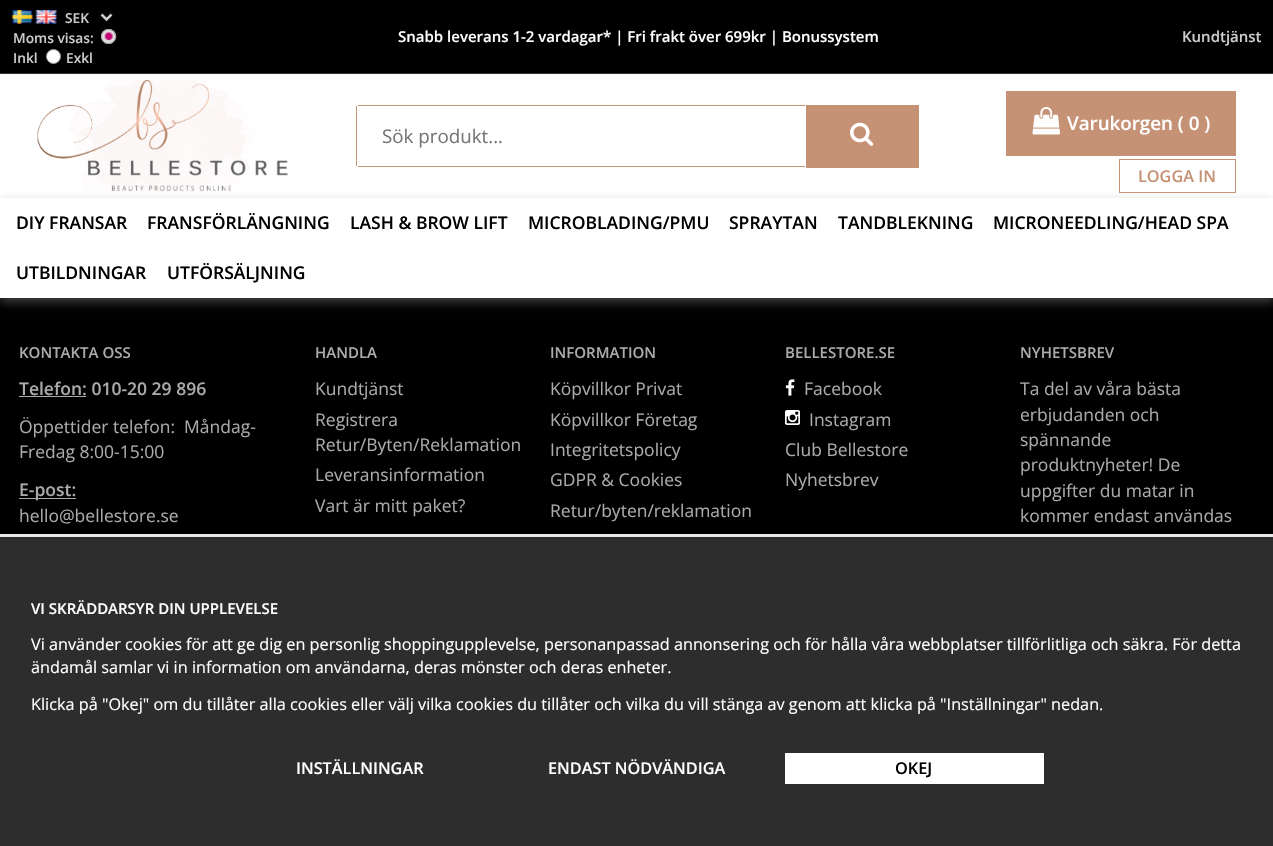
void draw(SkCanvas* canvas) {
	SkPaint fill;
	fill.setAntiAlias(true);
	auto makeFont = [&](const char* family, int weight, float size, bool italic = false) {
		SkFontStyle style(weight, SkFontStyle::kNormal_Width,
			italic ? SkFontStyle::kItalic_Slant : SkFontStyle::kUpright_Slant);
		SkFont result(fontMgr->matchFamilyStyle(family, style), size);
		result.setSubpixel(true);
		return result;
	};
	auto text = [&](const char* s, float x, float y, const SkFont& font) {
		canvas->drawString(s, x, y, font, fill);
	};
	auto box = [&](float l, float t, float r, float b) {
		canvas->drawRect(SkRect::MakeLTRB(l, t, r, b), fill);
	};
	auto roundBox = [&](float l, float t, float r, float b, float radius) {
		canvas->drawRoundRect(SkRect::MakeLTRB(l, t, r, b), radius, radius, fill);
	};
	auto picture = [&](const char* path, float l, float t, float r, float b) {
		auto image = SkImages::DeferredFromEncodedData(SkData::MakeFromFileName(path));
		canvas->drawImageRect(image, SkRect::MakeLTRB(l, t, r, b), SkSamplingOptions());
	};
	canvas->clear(0xFF000000);
	fill.setColor(0xFFFFFFFF);
	box(0, 74, 1273, 198);
	fill.setColor(0xFF333333);
	box(0, 73, 1273, 74);
	picture("image0.png", 12, 10, 33, 24);
	picture("image1.png", 35, 10, 57, 24);
	fill.setStyle(SkPaint::kStroke_Style);
	fill.setStrokeWidth(2.5f);
	fill.setColor(0xFFCCCCCC);
	canvas->drawPath(SkPathBuilder().moveTo(101.5f, 14.5f).lineTo(106.5f, 19.5f).lineTo(111.5f, 14.5f).detach(), fill);
	fill.setStyle(SkPaint::kFill_Style);
	fill.setColor(0xFFEEEEEE);
	canvas->drawCircle(108.5f, 36.5f, 7.5f, fill);
	picture("image2.png", 100, 28, 117, 44);
	fill.setStyle(SkPaint::kStroke_Style);
	fill.setStrokeWidth(1);
	fill.setColor(0xFF999999);
	canvas->drawCircle(108.5f, 36.5f, 7, fill);
	fill.setStyle(SkPaint::kFill_Style);
	fill.setColor(0xFFFFFFFF);
	canvas->drawCircle(53.5f, 56.5f, 7, fill);
	fill.setStyle(SkPaint::kStroke_Style);
	fill.setColor(0xFF999999);
	canvas->drawCircle(53.5f, 56.5f, 7, fill);
	picture("image3.png", 37, 80, 288, 192);
	fill.setStyle(SkPaint::kFill_Style);
	fill.setColor(0xFFF3F2F2);
	box(356, 105, 806, 168);
	fill.setColor(0xFFFFFFFF);
	roundBox(356, 105, 806, 168, 2.5f);
	fill.setColor(0xFFC69276);
	box(358, 105, 805, 106);
	box(358, 166, 805, 167);
	box(356, 106, 357, 166);
	box(806, 105, 919, 168);
	picture("image4.png", 850, 122, 874, 146);
	box(1006, 91, 1236, 156);
	picture("image5.png", 1032, 107, 1060, 135);
	fill.setStyle(SkPaint::kStroke_Style);
	canvas->drawRect(SkRect::MakeLTRB(1119.5f, 159.5f, 1235.5f, 192.5f), fill);
	fill.setStyle(SkPaint::kFill_Style);
	fill.setColor(0x80999999);
	fill.setMaskFilter(SkMaskFilter::MakeBlur(kNormal_SkBlurStyle, 5));
	canvas->drawRect(SkRect::MakeLTRB(0, 201, 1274, 301), fill);
	fill.setMaskFilter(nullptr);
	fill.setColor(0xFFFFFFFF);
	box(0, 198, 1273, 298);
	fill.setColor(0xFFAAAAAA);
	box(19, 396, 86, 397);
	box(19, 498, 76, 499);
	picture("image6.png", 785, 379, 795, 396);
	picture("image7.png", 785, 410, 800, 425);
	fill.setColor(0xFF2D2D2D);
	box(0, 537, 1273, 846);
	fill.setColor(0xFFE9E9E9);
	box(0, 534, 1273, 537);
	fill.setColor(0xFFFFFFFF);
	box(785, 753, 1044, 784);
	auto font1 = makeFont("Open Sans", 600, 13.75f);
	fill.setColor(0xFFCCCCCC);
	text("SEK", 65, 23, font1);
	text("Moms visas:", 13, 43, font1);
	text("Inkl", 13, 63, font1);
	text("Exkl", 66, 63, font1);
	auto font2 = makeFont("Open Sans", 600, 15);
	fill.setColor(0xFFFFFFFF);
	text("Snabb leverans 1-2 vardagar* | Fri frakt över 699kr | Bonussystem", 398, 42, font2);
	fill.setColor(0xFFCCCCCC);
	text("Kundtjänst", 1182, 42, font2);
	auto font3 = makeFont("Open Sans", 400, 18.75f);
	fill.setColor(0xFF757575);
	text("Sök produkt...", 382, 143, font3);
	auto font4 = makeFont("Open Sans", 600, 18.75f);
	fill.setColor(0xFFFFFFFF);
	text("Varukorgen ( 0 )", 1067, 130, font4);
	auto font5 = makeFont("Open Sans", 600, 16.25f);
	fill.setColor(0xFFC69276);
	text("LOGGA IN", 1138, 182, font5);
	auto font6 = makeFont("Open Sans", 600, 17.5f);
	fill.setColor(0xFF000000);
	text("DIY FRANSAR", 16, 229, font6);
	text("FRANSFÖRLÄNGNING", 147, 229, font6);
	text("LASH & BROW LIFT", 350, 229, font6);
	text("MICROBLADING/PMU", 528, 229, font6);
	text("SPRAYTAN", 729, 229, font6);
	text("TANDBLEKNING", 838, 229, font6);
	text("MICRONEEDLING/HEAD SPA", 993, 229, font6);
	text("UTBILDNINGAR", 16, 279, font6);
	text("UTFÖRSÄLJNING", 167, 279, font6);
	fill.setColor(0xFFAAAAAA);
	text("KONTAKTA OSS", 19, 358, font2);
	text("Telefon: 010-20 29 896", 19, 395, font6);
	auto font7 = makeFont("Open Sans", 400, 17.5f);
	text("Öppettider telefon:  Måndag-", 19, 433, font7);
	text("Fredag 8:00-15:00", 19, 458, font7);
	text("E-post:", 19, 496, font6);
	text("hello@bellestore.se", 19, 522, font7);
	text("HANDLA", 315, 358, font2);
	text("Kundtjänst", 315, 395, font7);
	text("Registrera", 315, 426, font7);
	text("Retur/Byten/Reklamation", 315, 451, font7);
	text("Leveransinformation", 315, 481, font7);
	text("Vart är mitt paket?", 315, 512, font7);
	text("INFORMATION", 550, 358, font2);
	text("Köpvillkor Privat", 550, 395, font7);
	text("Köpvillkor Företag", 550, 426, font7);
	text("Integritetspolicy", 550, 456, font7);
	text("GDPR & Cookies", 550, 486, font7);
	text("Retur/byten/reklamation", 550, 517, font7);
	text("BELLESTORE.SE", 785, 358, font2);
	text("Facebook", 804, 395, font7);
	text("Instagram", 809, 426, font7);
	text("Club Bellestore", 785, 456, font7);
	text("Nyhetsbrev", 785, 486, font7);
	text("NYHETSBREV", 1020, 358, font2);
	text("Ta del av våra bästa", 1020, 395, font7);
	text("erbjudanden och", 1020, 421, font7);
	text("spännande", 1020, 446, font7);
	text("produktnyheter! De", 1020, 471, font7);
	text("uppgifter du matar in", 1020, 497, font7);
	text("kommer endast användas", 1020, 522, font7);
	fill.setColor(0xFFFFFFFF);
	text("VI SKRÄDDARSYR DIN UPPLEVELSE", 31, 614, font2);
	auto font8 = makeFont("Open Sans", 400, 16.25f);
	text("Vi använder cookies för att ge dig en personlig shoppingupplevelse, personanpassad annonsering och för hålla våra webbplatser tillförlitliga och säkra. För detta", 31, 650, font8);
	text("ändamål samlar vi in information om användarna, deras mönster och deras enheter.", 31, 673, font8);
	text("Klicka på \"Okej\" om du tillåter alla cookies eller välj vilka cookies du tillåter och vilka du vill stänga av genom att klicka på \"Inställningar\" nedan.", 31, 710, font8);
	text("INSTÄLLNINGAR", 296, 774, font5);
	text("ENDAST NÖDVÄNDIGA", 548, 774, font5);
	fill.setColor(0xFF000000);
	text("OKEJ", 895, 774, font5);
}
